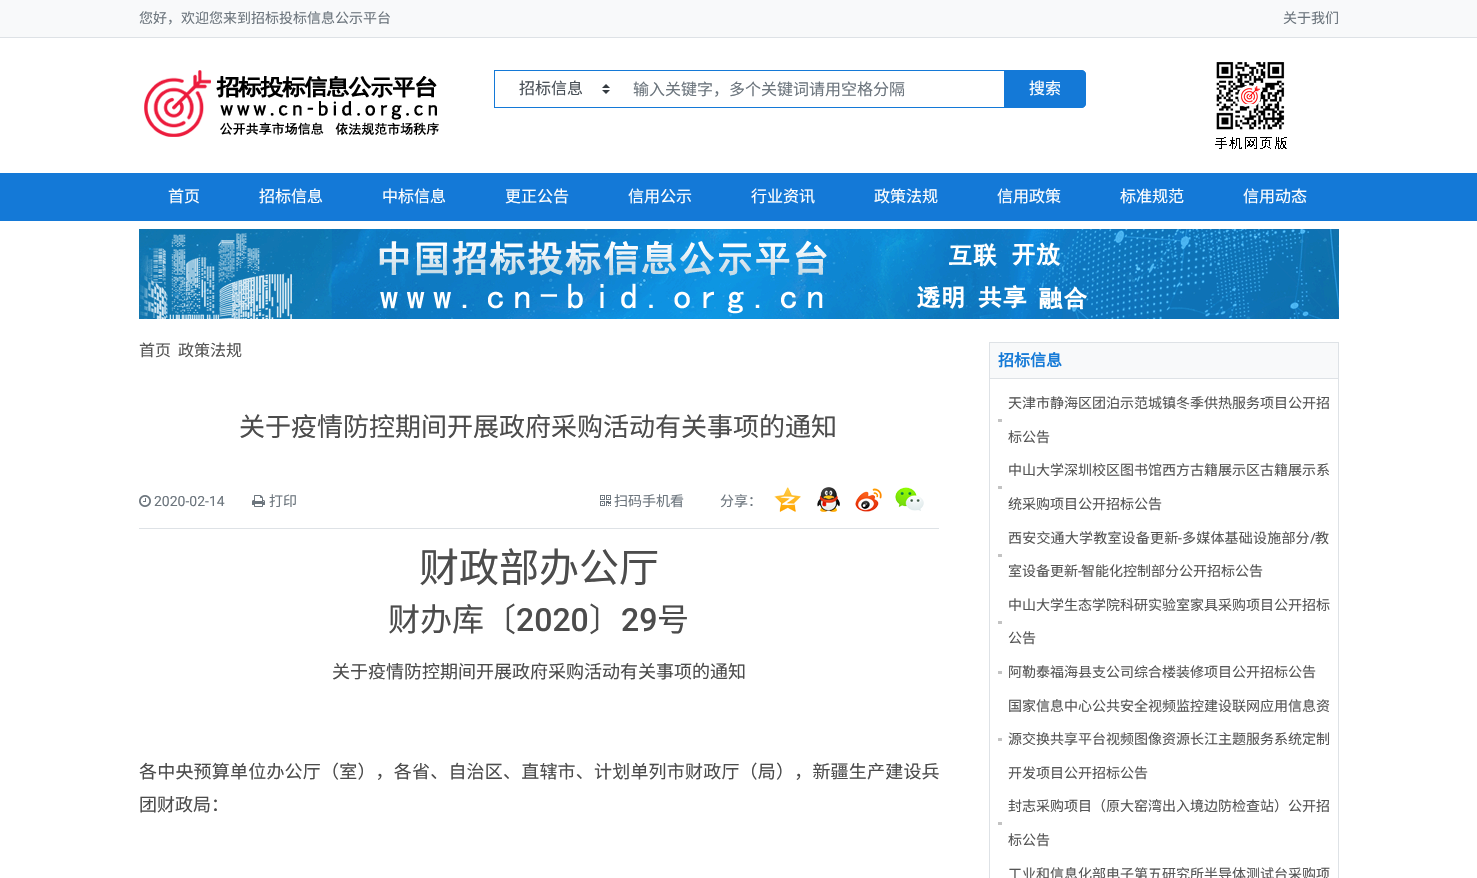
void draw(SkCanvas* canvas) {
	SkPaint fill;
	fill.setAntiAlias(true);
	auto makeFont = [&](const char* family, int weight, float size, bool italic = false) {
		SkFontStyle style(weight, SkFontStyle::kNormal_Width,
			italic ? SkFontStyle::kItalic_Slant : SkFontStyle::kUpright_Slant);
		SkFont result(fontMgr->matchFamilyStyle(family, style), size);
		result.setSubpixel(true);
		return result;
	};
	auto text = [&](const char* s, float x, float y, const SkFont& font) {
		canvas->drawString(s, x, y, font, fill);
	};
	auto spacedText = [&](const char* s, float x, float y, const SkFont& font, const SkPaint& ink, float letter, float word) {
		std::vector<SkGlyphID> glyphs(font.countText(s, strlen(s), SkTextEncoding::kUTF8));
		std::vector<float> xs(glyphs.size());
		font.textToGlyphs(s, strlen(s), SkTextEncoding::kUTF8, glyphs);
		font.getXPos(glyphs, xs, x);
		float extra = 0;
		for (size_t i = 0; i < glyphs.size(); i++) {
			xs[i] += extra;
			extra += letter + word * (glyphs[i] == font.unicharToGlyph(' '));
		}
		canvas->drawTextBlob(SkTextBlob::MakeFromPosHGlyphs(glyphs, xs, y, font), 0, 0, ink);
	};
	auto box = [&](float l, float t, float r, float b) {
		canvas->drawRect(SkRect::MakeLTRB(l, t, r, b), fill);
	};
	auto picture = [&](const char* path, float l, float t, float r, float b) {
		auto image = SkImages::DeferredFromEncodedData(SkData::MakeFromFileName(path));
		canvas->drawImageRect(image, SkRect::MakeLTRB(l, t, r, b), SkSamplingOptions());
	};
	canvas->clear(0xFFFFFFFF);
	fill.setColor(0xFFF8F9FA);
	box(0, 0, 1477, 37);
	fill.setColor(0xFFDEE2E6);
	box(0, 37, 1477, 38);
	picture("image0.png", 144, 70, 439, 137);
	picture("image1.png", 602, 84, 610, 94);
	fill.setColor(0xFF1479D7);
	box(494, 70, 1005, 71);
	box(494, 107, 1005, 108);
	box(494, 70, 495, 108);
	canvas->drawPath(SkPathBuilder().moveTo(1004.5f, 70.5f).lineTo(1082, 70.5f).cubicTo(1084, 70.5f, 1085.5f, 72, 1085.5f, 74).lineTo(1085.5f, 104).cubicTo(1085.5f, 106, 1084, 107.5f, 1082, 107.5f).lineTo(1004.5f, 107.5f).close().detach(), fill);
	fill.setStyle(SkPaint::kStroke_Style);
	fill.setStrokeWidth(1);
	canvas->drawPath(SkPathBuilder().moveTo(1004.5f, 70.5f).lineTo(1082, 70.5f).cubicTo(1084, 70.5f, 1085.5f, 72, 1085.5f, 74).lineTo(1085.5f, 104).cubicTo(1085.5f, 106, 1084, 107.5f, 1082, 107.5f).lineTo(1004.5f, 107.5f).close().detach(), fill);
	picture("image2.png", 1215, 62, 1287, 149);
	fill.setStyle(SkPaint::kFill_Style);
	box(0, 173, 1477, 221);
	picture("image3.png", 139, 229, 1339, 319);
	fill.setColor(0xFFDEE2E6);
	box(139, 528, 939, 529);
	picture("image4.png", 139, 495, 151, 507);
	picture("image5.png", 252, 495, 265, 507);
	picture("image6.png", 600, 495, 611, 506);
	picture("image7.png", 774, 487, 801, 512);
	picture("image8.png", 817, 487, 840, 512);
	picture("image9.png", 855, 488, 882, 512);
	picture("image10.png", 895, 487, 924, 511);
	fill.setStyle(SkPaint::kStroke_Style);
	canvas->drawRect(SkRect::MakeLTRB(989.5f, 342.5f, 1338.5f, 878.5f), fill);
	fill.setStyle(SkPaint::kFill_Style);
	fill.setColor(0xFFF8F9FA);
	box(990, 343, 1338, 378);
	fill.setColor(0xFFDEE2E6);
	box(990, 378, 1338, 379);
	fill.setColor(0xFFC3C3C3);
	box(998, 419, 1002, 422);
	box(998, 486, 1002, 489);
	box(998, 554, 1002, 557);
	box(998, 621, 1002, 624);
	box(998, 671, 1002, 674);
	box(998, 738, 1002, 741);
	box(998, 822, 1002, 825);
	auto font1 = makeFont("Noto Sans CJK SC", 400, 14);
	fill.setColor(0xFF6C757D);
	text("您好，欢迎您来到招标投标信息公示平台", 139, 23, font1);
	text("关于我们", 1283, 23, font1);
	auto font2 = makeFont("Noto Sans CJK SC", 400, 16);
	fill.setColor(0xFF495057);
	text("招标信息", 519, 94, font2);
	fill.setColor(0xFF6C757D);
	text("输入关键字，多个关键词请用空格分隔", 633, 95, font2);
	fill.setColor(0xFFFFFFFF);
	text("搜索", 1029, 94, font2);
	text("首页", 168, 202, font2);
	text("招标信息", 259, 202, font2);
	text("中标信息", 382, 202, font2);
	text("更正公告", 505, 202, font2);
	text("信用公示", 628, 202, font2);
	text("行业资讯", 751, 202, font2);
	text("政策法规", 874, 202, font2);
	text("信用政策", 997, 202, font2);
	text("标准规范", 1120, 202, font2);
	text("信用动态", 1243, 202, font2);
	fill.setColor(0xFF555555);
	text("首页", 139, 356, font2);
	text("政策法规", 178, 356, font2);
	auto font3 = makeFont("Noto Sans CJK SC", 400, 26);
	fill.setColor(0xFF4C4C4C);
	text("关于疫情防控期间开展政府采购活动有关事项的通知", 239, 436, font3);
	auto font4 = makeFont("Roboto", 400, 14);
	fill.setColor(0xFF6C757D);
	text("2020-02-14", 154, 506, font4);
	text("打印", 269, 506, font1);
	text("扫码手机看", 614, 506, font1);
	text("分享：", 720, 506, font1);
	auto font5 = makeFont("Noto Sans CJK SC", 400, 40);
	fill.setColor(0xFF4C4C4C);
	text("财政部办公厅", 419, 582, font5);
	auto font6 = makeFont("Noto Sans CJK SC", 400, 32);
	text("财办库〔", 388, 631, font6);
	auto font7 = makeFont("Roboto", 500, 32);
	text("2020", 516, 631, font7);
	text("〕", 589, 631, font6);
	text("29", 621, 631, font7);
	text("号", 657, 631, font6);
	auto font8 = makeFont("Noto Sans CJK SC", 400, 18);
	text("关于疫情防控期间开展政府采购活动有关事项的通知", 332, 678, font8);
	spacedText("各中央预算单位办公厅（室），各省、自治区、直辖市、计划单列市财政厅（局），新疆生产建设兵", 139, 778, font8, fill, 0.2f, 0);
	text("团财政局：", 139, 811, font8);
	auto font9 = makeFont("Noto Sans CJK SC", 700, 16);
	fill.setColor(0xFF1479D7);
	text("招标信息", 998, 366, font9);
	fill.setColor(0xFF555555);
	text("天津市静海区团泊示范城镇冬季供热服务项目公开招", 1008, 408, font1);
	text("标公告", 1008, 442, font1);
	text("中山大学深圳校区图书馆西方古籍展示区古籍展示系", 1008, 475, font1);
	text("统采购项目公开招标公告", 1008, 509, font1);
	spacedText("西安交通大学教室设备更新", 1008, 543, font1, fill, 0.2f, 0);
	spacedText("-", 1178, 543, font4, fill, 0.2f, 0);
	spacedText("多媒体基础设施部分", 1182, 543, font1, fill, 0.2f, 0);
	spacedText("/", 1310, 543, font4, fill, 0.2f, 0);
	spacedText("教", 1315, 543, font1, fill, 0.2f, 0);
	text("室设备更新", 1008, 576, font1);
	text("-", 1078, 576, font4);
	text("智能化控制部分公开招标公告", 1081, 576, font1);
	text("中山大学生态学院科研实验室家具采购项目公开招标", 1008, 610, font1);
	text("公告", 1008, 643, font1);
	text("阿勒泰福海县支公司综合楼装修项目公开招标公告", 1008, 677, font1);
	text("国家信息中心公共安全视频监控建设联网应用信息资", 1008, 711, font1);
	text("源交换共享平台视频图像资源长江主题服务系统定制", 1008, 744, font1);
	text("开发项目公开招标公告", 1008, 778, font1);
	text("封志采购项目（原大窑湾出入境边防检查站）公开招", 1008, 811, font1);
	text("标公告", 1008, 845, font1);
	text("工业和信息化部电子第五研究所半导体测试台采购项", 1008, 879, font1);
}
